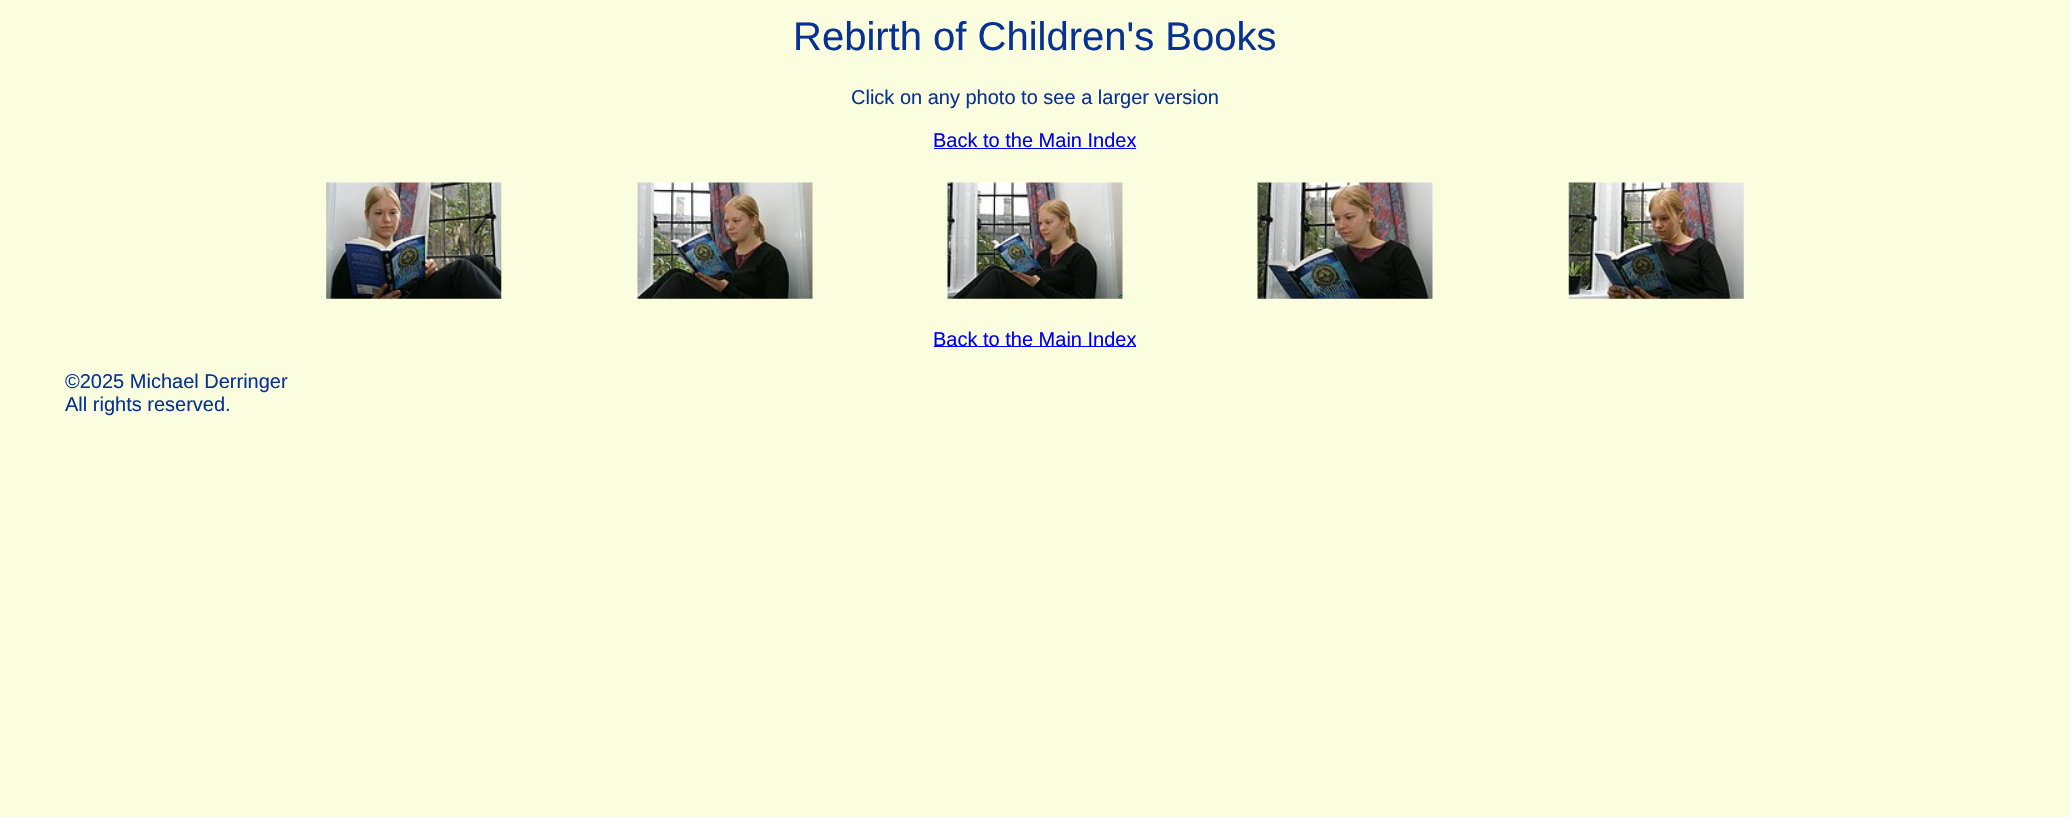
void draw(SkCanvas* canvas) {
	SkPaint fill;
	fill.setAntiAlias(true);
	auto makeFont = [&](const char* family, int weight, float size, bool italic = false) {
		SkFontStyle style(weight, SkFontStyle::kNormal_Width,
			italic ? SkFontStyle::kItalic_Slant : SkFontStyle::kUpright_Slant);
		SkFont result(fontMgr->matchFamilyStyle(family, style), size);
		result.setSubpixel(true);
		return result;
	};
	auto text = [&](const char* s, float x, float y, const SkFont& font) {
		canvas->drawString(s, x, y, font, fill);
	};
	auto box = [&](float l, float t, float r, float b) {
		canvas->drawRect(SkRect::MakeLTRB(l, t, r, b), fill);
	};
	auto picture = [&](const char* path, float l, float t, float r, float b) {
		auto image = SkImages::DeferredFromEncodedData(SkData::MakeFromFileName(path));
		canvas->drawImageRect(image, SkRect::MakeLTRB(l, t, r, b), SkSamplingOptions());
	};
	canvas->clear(0xFFFAFEDE);
	fill.setColor(0xFF0000EE);
	box(934, 148, 1136, 149);
	picture("image0.png", 326, 182, 502, 299);
	picture("image1.png", 637, 182, 813, 299);
	picture("image2.png", 947, 182, 1123, 299);
	picture("image3.png", 1257, 182, 1433, 299);
	picture("image4.png", 1568, 182, 1744, 299);
	box(934, 346, 1136, 347);
	auto font1 = makeFont("Liberation Sans", 400, 40);
	fill.setColor(0xFF083194);
	text("Rebirth of Children's Books", 793, 50, font1);
	auto font2 = makeFont("Liberation Sans", 400, 20);
	text("Click on any photo to see a larger version", 851, 104, font2);
	fill.setColor(0xFF0000EE);
	text("Back to the Main Index", 933, 147, font2);
	text("Back to the Main Index", 933, 346, font2);
	fill.setColor(0xFF083194);
	text("©2025 Michael Derringer", 65, 388, font2);
	text("All rights reserved.", 65, 411, font2);
}
